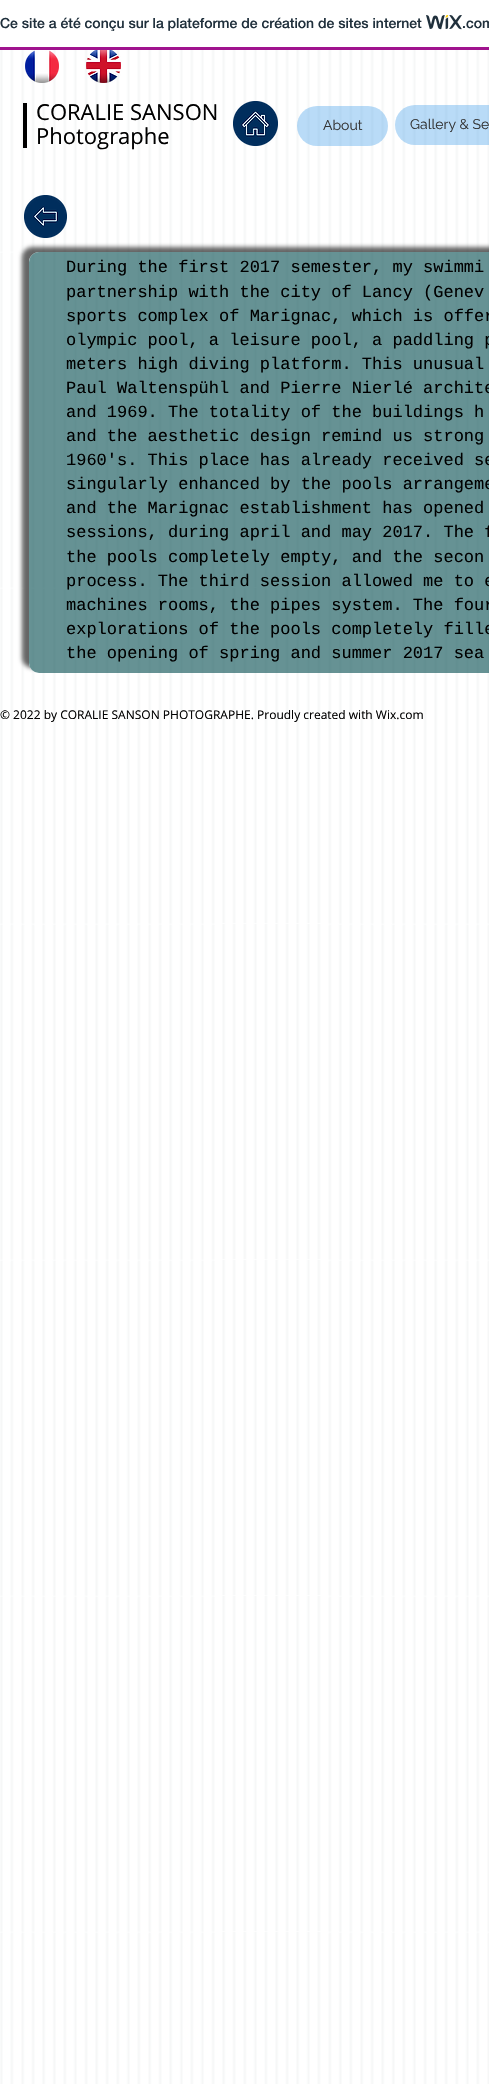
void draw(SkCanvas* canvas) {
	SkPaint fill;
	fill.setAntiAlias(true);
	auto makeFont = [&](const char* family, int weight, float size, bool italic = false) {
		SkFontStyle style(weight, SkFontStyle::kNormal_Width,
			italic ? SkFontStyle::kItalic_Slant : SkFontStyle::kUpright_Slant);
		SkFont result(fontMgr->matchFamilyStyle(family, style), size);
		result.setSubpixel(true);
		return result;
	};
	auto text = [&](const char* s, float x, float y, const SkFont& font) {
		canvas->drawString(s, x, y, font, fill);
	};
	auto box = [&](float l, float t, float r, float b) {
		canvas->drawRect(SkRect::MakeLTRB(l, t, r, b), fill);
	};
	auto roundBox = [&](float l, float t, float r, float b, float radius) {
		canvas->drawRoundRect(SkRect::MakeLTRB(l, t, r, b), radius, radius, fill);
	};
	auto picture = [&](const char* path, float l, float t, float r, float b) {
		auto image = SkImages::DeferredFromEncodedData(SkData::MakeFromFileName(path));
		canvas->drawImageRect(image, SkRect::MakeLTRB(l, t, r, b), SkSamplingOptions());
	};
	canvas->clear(0xFFFFFFFF);
	fill.setColor(0xFFA0138E);
	box(0, 47, 489, 50);
	picture("image0.png", 426, 15, 462, 30);
	picture("image1.png", 0, 50, 489, 2084);
	picture("image2.png", 25, 50, 59, 83);
	picture("image3.png", 86, 50, 121, 83);
	fill.setColor(0xFF000000);
	box(23, 103, 27, 148);
	picture("image4.png", 233, 101, 278, 146);
	fill.setColor(0x5C3D9BE9);
	roundBox(297, 106, 388, 146, 20);
	roundBox(395, 105, 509, 145, 20);
	picture("image5.png", 24, 195, 67, 238);
	canvas->save();
	canvas->clipPath(SkPathBuilder(SkPathFillType::kEvenOdd).moveTo(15, 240).lineTo(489, 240).lineTo(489, 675).lineTo(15, 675).close().moveTo(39, 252).lineTo(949, 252).cubicTo(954.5f, 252, 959, 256.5f, 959, 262).lineTo(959, 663).cubicTo(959, 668.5f, 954.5f, 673, 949, 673).lineTo(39, 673).cubicTo(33.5f, 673, 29, 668.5f, 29, 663).lineTo(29, 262).cubicTo(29, 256.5f, 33.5f, 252, 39, 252).close().detach(), true);
	fill.setColor(0x99000000);
	fill.setMaskFilter(SkMaskFilter::MakeBlur(kNormal_SkBlurStyle, 2));
	canvas->drawRoundRect(SkRect::MakeLTRB(22, 247, 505, 668), 10, 10, fill);
	fill.setMaskFilter(nullptr);
	canvas->restore();
	fill.setColor(0x9900494C);
	roundBox(29, 252, 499, 673, 10);
	auto font1 = makeFont("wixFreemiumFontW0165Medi", 500, 14);
	fill.setColor(0xFF20303C);
	text("Ce site a été conçu sur la plateforme de création de sites internet", 0, 28, font1);
	text(".com", 462, 28, font1);
	auto font2 = makeFont("Open Sans", 400, 22);
	fill.setColor(0xFF000000);
	text("CORALIE SANSON", 36, 120, font2);
	text("Photographe", 36, 144, font2);
	auto font3 = makeFont("Raleway", 400, 14);
	fill.setColor(0xFF333333);
	text("About", 323, 130, font3);
	text("Gallery & Se", 410, 129, font3);
	auto font4 = makeFont("Liberation Mono", 400, 17);
	fill.setColor(0xFF000000);
	text("During the first 2017 semester, my swimmi", 66, 272, font4);
	text("partnership with the city of Lancy (Genev", 66, 297, font4);
	text("sports complex of Marignac, which is offer", 66, 321, font4);
	text("olympic pool, a leisure pool, a paddling p", 66, 345, font4);
	text("meters high diving platform. This unusual", 66, 369, font4);
	text("Paul Waltenspühl and Pierre Nierlé archite", 66, 393, font4);
	text("and 1969. The totality of the buildings h", 66, 417, font4);
	text("and the aesthetic design remind us strong", 66, 441, font4);
	text("1960's. This place has already received se", 66, 465, font4);
	text("singularly enhanced by the pools arrangeme", 66, 489, font4);
	text("and the Marignac establishment has opened", 66, 513, font4);
	text("sessions, during april and may 2017. The f", 66, 537, font4);
	text("the pools completely empty, and the secon", 66, 562, font4);
	text("process. The third session allowed me to e", 66, 586, font4);
	text("machines rooms, the pipes system. The four", 66, 610, font4);
	text("explorations of the pools completely fille", 66, 634, font4);
	text("the opening of spring and summer 2017 sea", 66, 658, font4);
	auto font5 = makeFont("Open Sans", 400, 12);
	text("© 2022 by CORALIE SANSON PHOTOGRAPHE. Proudly created with Wix.com", 0, 719, font5);
}
